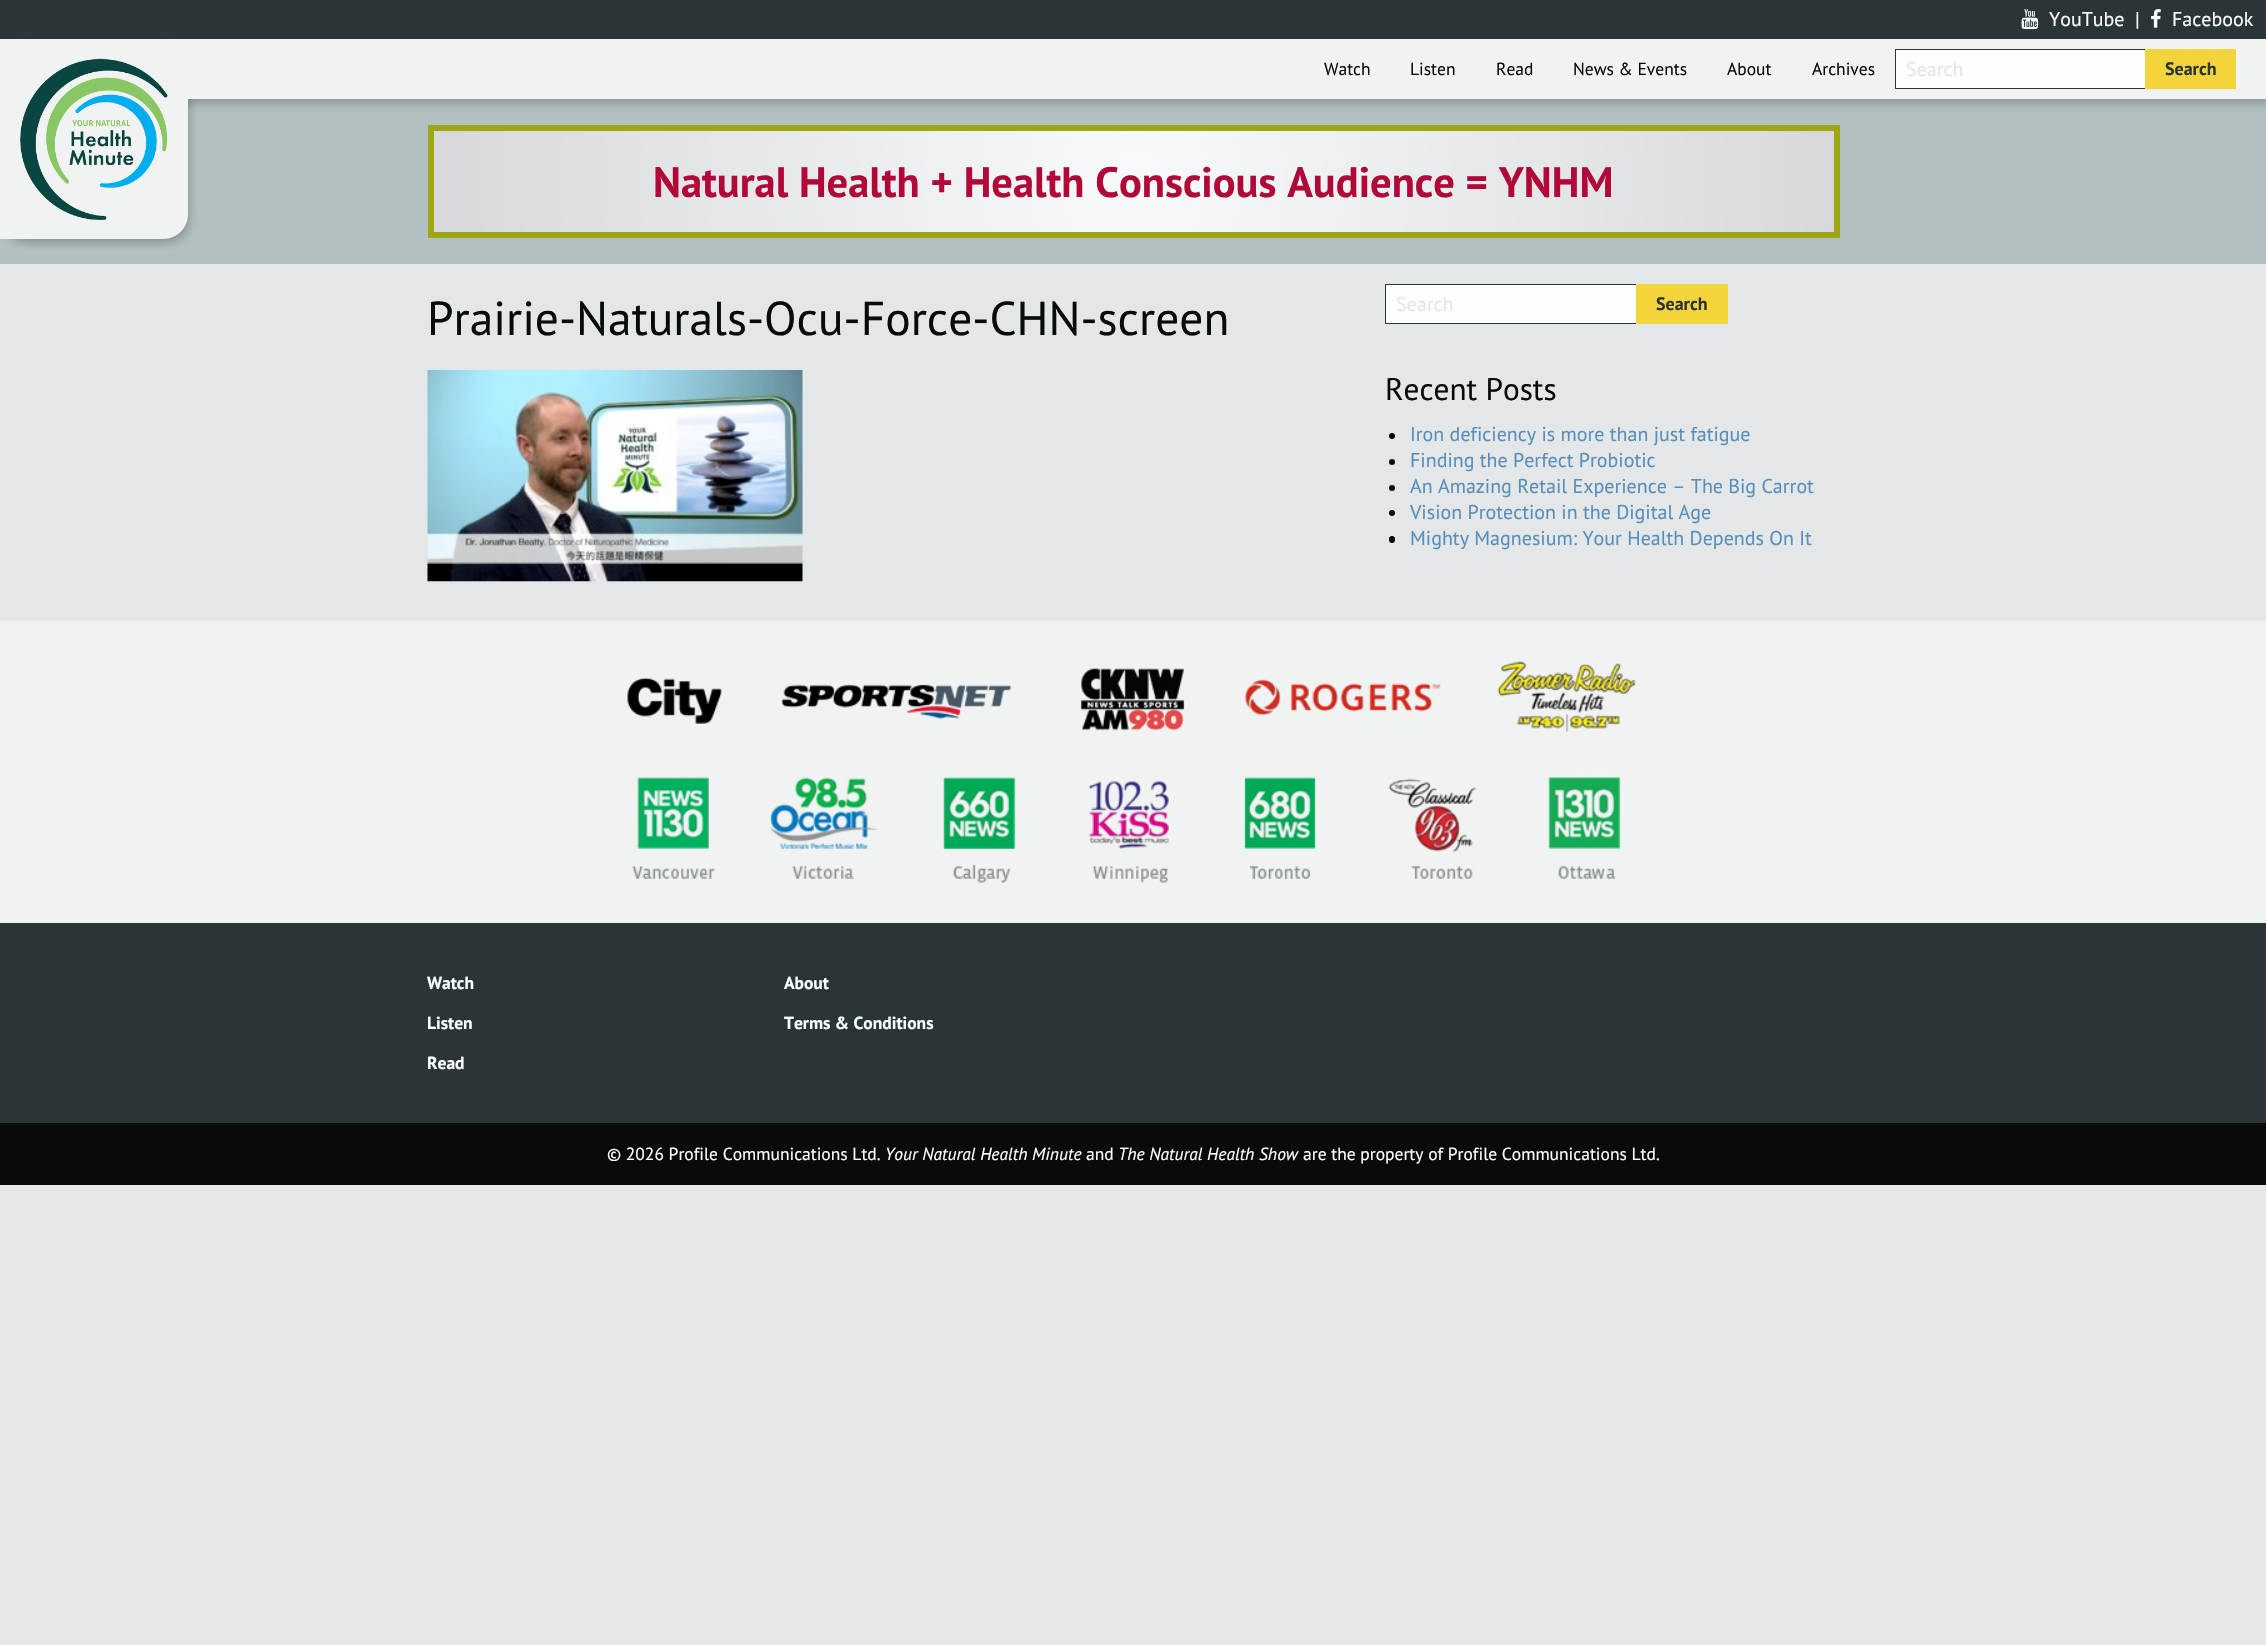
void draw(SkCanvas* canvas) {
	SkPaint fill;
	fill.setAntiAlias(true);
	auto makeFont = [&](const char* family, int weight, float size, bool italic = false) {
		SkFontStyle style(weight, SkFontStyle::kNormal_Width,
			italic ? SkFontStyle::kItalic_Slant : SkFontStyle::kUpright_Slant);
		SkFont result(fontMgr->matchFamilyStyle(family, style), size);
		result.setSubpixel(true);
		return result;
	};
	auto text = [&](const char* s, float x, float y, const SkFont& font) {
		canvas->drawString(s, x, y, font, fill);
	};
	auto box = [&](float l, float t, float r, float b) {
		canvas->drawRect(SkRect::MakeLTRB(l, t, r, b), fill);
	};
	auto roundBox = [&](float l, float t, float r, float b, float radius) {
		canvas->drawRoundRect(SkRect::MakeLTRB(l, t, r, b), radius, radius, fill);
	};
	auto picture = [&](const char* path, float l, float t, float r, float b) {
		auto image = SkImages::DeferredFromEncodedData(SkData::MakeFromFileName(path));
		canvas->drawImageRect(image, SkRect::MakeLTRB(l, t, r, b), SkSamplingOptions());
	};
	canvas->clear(0xFFE3E7E7);
	fill.setColor(0xFF293537);
	box(0, 0, 2266, 39);
	picture("image0.png", 2021, 9, 2039, 30);
	picture("image1.png", 2151, 9, 2161, 28);
	fill.setColor(0xFFB2C0C1);
	box(0, 99, 2266, 264);
	fill.setColor(0x401D1D1D);
	fill.setMaskFilter(SkMaskFilter::MakeBlur(kNormal_SkBlurStyle, 4));
	canvas->drawRect(SkRect::MakeLTRB(3, 44, 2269, 104), fill);
	fill.setMaskFilter(nullptr);
	fill.setColor(0xFFF1F3F3);
	box(213, 39, 2266, 99);
	fill.setColor(0x401D1D1D);
	fill.setMaskFilter(SkMaskFilter::MakeBlur(kNormal_SkBlurStyle, 4));
	canvas->drawRoundRect(SkRect::MakeLTRB(3, 44, 190, 244), 25, 25, fill);
	fill.setMaskFilter(nullptr);
	fill.setColor(0xFFF1F3F3);
	canvas->drawPath(SkPathBuilder().moveTo(0, 39).lineTo(188, 39).lineTo(188, 214).cubicTo(188, 228, 177, 239, 163, 239).lineTo(0, 239).close().detach(), fill);
	picture("image2.png", 20, 58, 168, 220);
	box(188, 39, 213, 99);
	fill.setColor(0xFFFEFEFE);
	box(1896, 50, 2145, 88);
	fill.setColor(0xFF293537);
	box(1895, 49, 2145, 50);
	box(1895, 88, 2145, 89);
	box(1895, 49, 1896, 89);
	fill.setColor(0xFFF4D43B);
	box(2145, 49, 2236, 89);
	{
		const SkColor colors[] = {0xFFD7D8DC, 0xFFF7FBFC, 0xFFD7D8DC};
		const float stops[] = {0, 0, 1};
		fill.setShader(SkGradientShader::MakeRadial({1134, 181}, 702, colors, stops, 3, SkTileMode::kClamp));
		fill.setAlpha(255);
	}
	box(434, 131, 1834, 231);
	{
		const SkColor colors[] = {0xFFD7D8DC, 0xFFF7FBFC, 0xFFD7D8DC};
		const float stops[] = {0, 0, 1};
		fill.setShader(SkGradientShader::MakeRadial({1134, 281}, 702, colors, stops, 3, SkTileMode::kClamp));
		fill.setAlpha(255);
	}
	box(434, 231, 1834, 232);
	fill.setStyle(SkPaint::kStroke_Style);
	fill.setStrokeWidth(6);
	fill.setShader(nullptr);
	fill.setColor(0xFF9EA615);
	canvas->drawRect(SkRect::MakeLTRB(431, 128, 1837, 235), fill);
	picture("image3.png", 427, 370, 803, 582);
	fill.setStyle(SkPaint::kFill_Style);
	fill.setColor(0xFFFEFEFE);
	box(1386, 285, 1636, 323);
	fill.setColor(0xFF293537);
	box(1385, 284, 1636, 285);
	box(1385, 323, 1636, 324);
	box(1385, 284, 1386, 324);
	fill.setColor(0xFFF4D43B);
	box(1636, 284, 1728, 324);
	fill.setColor(0xFF0A0A0A);
	canvas->drawCircle(1392, 436, 3, fill);
	canvas->drawCircle(1392, 462, 3, fill);
	canvas->drawCircle(1392, 488, 3, fill);
	canvas->drawCircle(1392, 513, 3, fill);
	roundBox(1389, 536, 1395, 543, 3);
	fill.setColor(0xFFF1F3F3);
	box(0, 621, 2266, 923);
	picture("image4.png", 627, 661, 1636, 883);
	fill.setColor(0xFF293537);
	box(0, 923, 2266, 1123);
	fill.setColor(0xFF0A0A0A);
	box(0, 1123, 2266, 1185);
	auto font1 = makeFont("PT Sans", 400, 20);
	fill.setColor(0xFFFEFEFE);
	text("YouTube", 2049, 26, font1);
	text("|", 2135, 26, font1);
	text("Facebook", 2172, 26, font1);
	auto font2 = makeFont("PT Sans", 400, 17.5f);
	fill.setColor(0xFF0A0A0A);
	text("Watch", 1324, 75, font2);
	text("Listen", 1410, 75, font2);
	text("Read", 1496, 75, font2);
	text("News & Events", 1573, 75, font2);
	text("About", 1727, 75, font2);
	text("Archives", 1812, 75, font2);
	fill.setColor(0xFFE3E7E7);
	text("Search", 1906, 76, font1);
	auto font3 = makeFont("PT Sans", 700, 18);
	fill.setColor(0xFF293537);
	text("Search", 2165, 75, font3);
	auto font4 = makeFont("PT Sans", 700, 42.5f);
	fill.setColor(0xFFB20837);
	text("Natural Health + Health Conscious Audience = YNHM", 653, 197, font4);
	auto font5 = makeFont("PT Sans", 400, 47.5f);
	fill.setColor(0xFF0A0A0A);
	text("Prairie-Naturals-Ocu-Force-CHN-screen", 427, 335, font5);
	fill.setColor(0xFFE3E7E7);
	text("Search", 1396, 311, font1);
	fill.setColor(0xFF293537);
	text("Search", 1656, 310, font3);
	auto font6 = makeFont("PT Sans", 400, 31.25f);
	fill.setColor(0xFF0A0A0A);
	text("Recent Posts", 1385, 400, font6);
	fill.setColor(0xFF598DBC);
	text("Iron deficiency is more than just fatigue", 1410, 441, font1);
	text("Finding the Perfect Probiotic", 1410, 467, font1);
	text("An Amazing Retail Experience – The Big Carrot", 1410, 493, font1);
	text("Vision Protection in the Digital Age", 1410, 519, font1);
	text("Mighty Magnesium: Your Health Depends On It", 1410, 545, font1);
	auto font7 = makeFont("PT Sans", 700, 17.5f);
	fill.setColor(0xFFFEFEFE);
	text("Watch", 427, 989, font7);
	text("About", 784, 989, font7);
	text("Listen", 427, 1029, font7);
	text("Terms & Conditions", 784, 1029, font7);
	text("Read", 427, 1069, font7);
	text("© 2026 Profile Communications Ltd.", 607, 1160, font2);
	auto font8 = makeFont("PT Sans", 400, 17.5f, true);
	text("Your Natural Health Minute", 885, 1160, font8);
	text("and", 1086, 1160, font2);
	text("The Natural Health Show", 1118, 1160, font8);
	text("are the property of Profile Communications Ltd.", 1303, 1160, font2);
}
